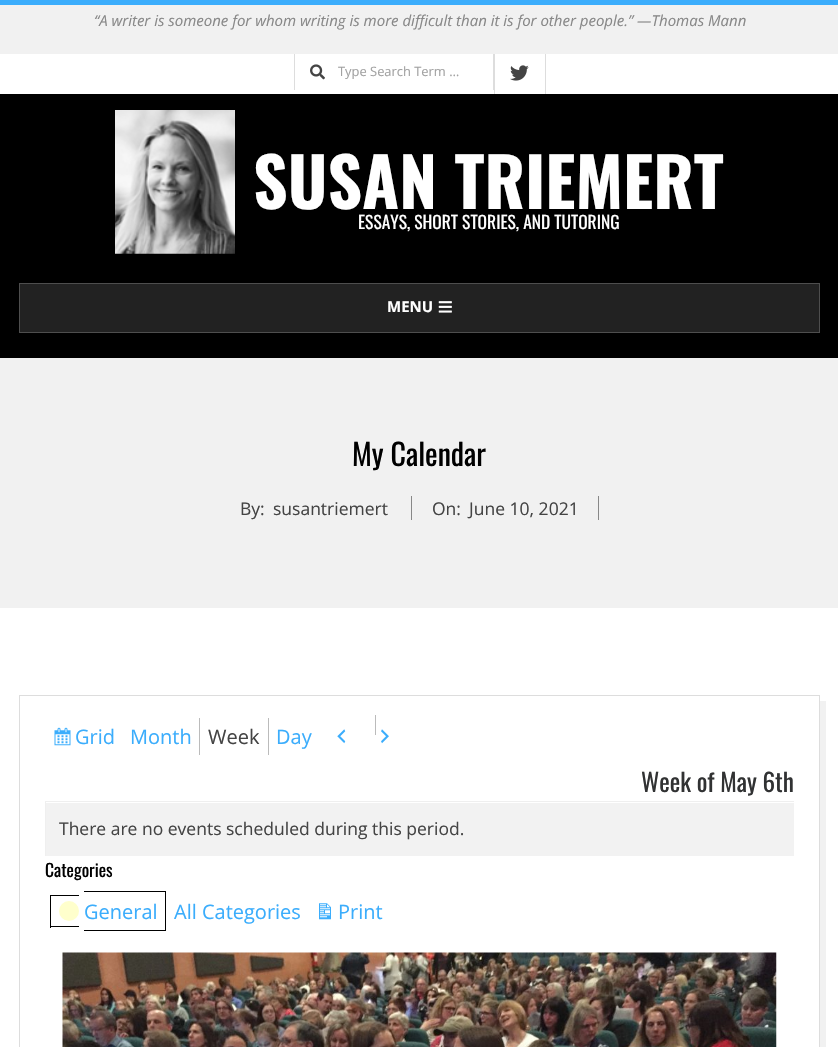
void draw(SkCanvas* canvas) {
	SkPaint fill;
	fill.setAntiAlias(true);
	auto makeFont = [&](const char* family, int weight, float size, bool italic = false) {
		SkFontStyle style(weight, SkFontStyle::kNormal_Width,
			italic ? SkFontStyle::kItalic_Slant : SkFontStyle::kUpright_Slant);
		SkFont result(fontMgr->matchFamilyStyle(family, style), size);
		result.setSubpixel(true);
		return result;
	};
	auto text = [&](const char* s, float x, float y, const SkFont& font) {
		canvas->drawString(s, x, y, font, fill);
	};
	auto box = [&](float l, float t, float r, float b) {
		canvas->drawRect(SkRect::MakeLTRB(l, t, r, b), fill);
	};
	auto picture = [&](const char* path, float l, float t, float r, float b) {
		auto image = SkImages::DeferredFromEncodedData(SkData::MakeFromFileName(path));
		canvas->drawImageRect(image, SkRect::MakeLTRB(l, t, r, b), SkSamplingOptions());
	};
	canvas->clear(0xFFFFFFFF);
	fill.setColor(0xFF3BADFC);
	box(0, 0, 838, 5);
	fill.setColor(0xFFF1F1F1);
	box(0, 5, 838, 54);
	picture("image0.png", 310, 64, 325, 80);
	fill.setColor(0xFFDDDDDD);
	box(493, 54, 494, 90);
	box(294, 54, 295, 90);
	box(545, 54, 546, 94);
	box(494, 54, 495, 94);
	picture("image1.png", 510, 65, 529, 81);
	fill.setColor(0xFF000000);
	box(0, 94, 838, 358);
	picture("image2.png", 115, 110, 235, 254);
	fill.setColor(0xFF222222);
	canvas->drawRect(SkRect::MakeLTRB(19.5f, 283.5f, 819.5f, 332.5f), fill);
	fill.setStyle(SkPaint::kStroke_Style);
	fill.setStrokeWidth(1);
	fill.setColor(0xFF4E4E4E);
	canvas->drawRect(SkRect::MakeLTRB(19.5f, 283.5f, 819.5f, 332.5f), fill);
	picture("image3.png", 438, 301, 452, 313);
	fill.setStyle(SkPaint::kFill_Style);
	fill.setColor(0xFFF1F1F1);
	box(0, 358, 838, 608);
	fill.setColor(0xFF888888);
	box(411, 496, 412, 520);
	box(598, 496, 599, 520);
	fill.setColor(0xFFF1F1F1);
	canvas->drawPath(SkPathBuilder().moveTo(25, 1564).lineTo(25, 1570).lineTo(826, 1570).lineTo(826, 701).lineTo(820, 701).lineTo(820, 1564).close().detach(), fill);
	fill.setStyle(SkPaint::kStroke_Style);
	fill.setColor(0xFFDDDDDD);
	canvas->drawRect(SkRect::MakeLTRB(19.5f, 695.5f, 819.5f, 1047.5f), fill);
	picture("image4.png", 54, 727, 71, 746);
	fill.setStyle(SkPaint::kFill_Style);
	fill.setColor(0xFFBBBBBB);
	box(199, 718, 200, 755);
	box(268, 718, 269, 755);
	box(375, 715, 376, 735);
	picture("image5.png", 337, 729, 346, 744);
	picture("image6.png", 381, 729, 389, 744);
	fill.setColor(0xFFEFEFEF);
	box(45, 801, 794, 802);
	box(45, 801, 46, 856);
	fill.setColor(0xFFF2F2F2);
	box(46, 803, 794, 856);
	fill.setColor(0xFF000000);
	box(50, 895, 79, 896);
	box(50, 926, 79, 927);
	box(50, 895, 51, 928);
	box(84, 891, 166, 892);
	box(165, 891, 166, 931);
	box(84, 930, 166, 931);
	fill.setColor(0xFFFFFFCC);
	canvas->drawCircle(69, 911, 10, fill);
	picture("image7.png", 319, 903, 331, 920);
	picture("image8.png", 62, 952, 777, 1047);
	auto font1 = makeFont("Open Sans", 400, 15, true);
	fill.setColor(0xFF888888);
	text("“A writer is someone for whom writing is more difficult than it is for other people.” —Thomas Mann", 94, 26, font1);
	auto font2 = makeFont("Open Sans", 400, 12.9f);
	fill.setColor(0xFFA2A2A2);
	text("Type Search Term …", 338, 76, font2);
	auto font3 = makeFont("Oswald", 700, 67.5f);
	fill.setColor(0xFFFFFFFF);
	text("SUSAN TRIEMERT", 253, 209, font3);
	auto font4 = makeFont("Oswald", 400, 17.5f);
	text("ESSAYS, SHORT STORIES, AND TUTORING", 358, 229, font4);
	auto font5 = makeFont("Open Sans", 700, 15);
	text("MENU", 387, 312, font5);
	auto font6 = makeFont("Oswald", 400, 30);
	fill.setColor(0xFF000000);
	text("My Calendar", 352, 466, font6);
	auto font7 = makeFont("Open Sans", 400, 17.5f);
	fill.setColor(0xFF444444);
	text("By:", 240, 515, font7);
	text("susantriemert", 273, 515, font7);
	text("On:", 432, 515, font7);
	text("June 10, 2021", 469, 515, font7);
	auto font8 = makeFont("Open Sans", 400, 20);
	fill.setColor(0xFF3BADFC);
	text("Grid", 75, 744, font8);
	text("Month", 130, 744, font8);
	fill.setColor(0xFF444444);
	text("Week", 208, 744, font8);
	fill.setColor(0xFF3BADFC);
	text("Day", 276, 744, font8);
	auto font9 = makeFont("Oswald", 400, 25);
	fill.setColor(0xFF313233);
	text("Week of May 6th", 641, 792, font9);
	fill.setColor(0xFF444444);
	text("There are no events scheduled during this period.", 59, 835, font7);
	fill.setColor(0xFF000000);
	text("Categories", 45, 877, font4);
	fill.setColor(0xFF3BADFC);
	text("General", 84, 919, font8);
	text("All Categories", 174, 919, font8);
	text("Print", 338, 919, font8);
}
